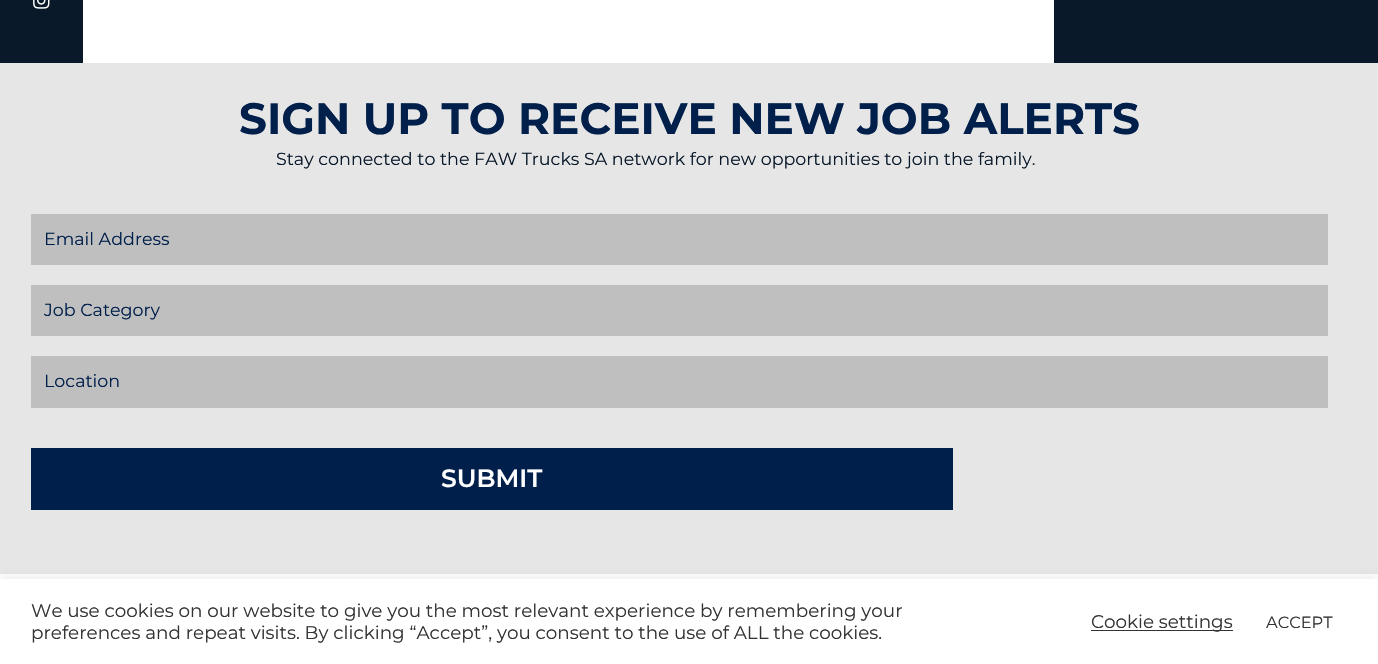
void draw(SkCanvas* canvas) {
	SkPaint fill;
	fill.setAntiAlias(true);
	auto makeFont = [&](const char* family, int weight, float size, bool italic = false) {
		SkFontStyle style(weight, SkFontStyle::kNormal_Width,
			italic ? SkFontStyle::kItalic_Slant : SkFontStyle::kUpright_Slant);
		SkFont result(fontMgr->matchFamilyStyle(family, style), size);
		result.setSubpixel(true);
		return result;
	};
	auto text = [&](const char* s, float x, float y, const SkFont& font) {
		canvas->drawString(s, x, y, font, fill);
	};
	auto box = [&](float l, float t, float r, float b) {
		canvas->drawRect(SkRect::MakeLTRB(l, t, r, b), fill);
	};
	auto picture = [&](const char* path, float l, float t, float r, float b) {
		auto image = SkImages::DeferredFromEncodedData(SkData::MakeFromFileName(path));
		canvas->drawImageRect(image, SkRect::MakeLTRB(l, t, r, b), SkSamplingOptions());
	};
	canvas->clear(0xFFFFFFFF);
	fill.setColor(0xFF0A192A);
	box(0, 0, 83, 63);
	picture("image0.png", 33, 0, 50, 9);
	box(1054, 0, 1378, 63);
	fill.setColor(0xFFE6E6E6);
	box(0, 63, 1378, 574);
	fill.setColor(0xFFBFBFBF);
	box(31, 214, 1328, 265);
	box(31, 285, 1328, 336);
	box(31, 356, 1328, 408);
	fill.setColor(0xFF001F4B);
	box(31, 448, 953, 510);
	fill.setColor(0x4DACABAB);
	fill.setMaskFilter(SkMaskFilter::MakeBlur(kNormal_SkBlurStyle, 6));
	canvas->drawRect(SkRect::MakeLTRB(0, 578, 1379, 664), fill);
	fill.setMaskFilter(nullptr);
	fill.setColor(0xFFFFFFFF);
	box(0, 579, 1378, 664);
	fill.setColor(0xFF333333);
	box(1091, 630, 1233, 631);
	auto font1 = makeFont("Montserrat", 700, 43.75f);
	fill.setColor(0xFF001F4B);
	text("SIGN UP TO RECEIVE NEW JOB ALERTS", 239, 134, font1);
	auto font2 = makeFont("Montserrat", 400, 17.5f);
	fill.setColor(0xFF0A192A);
	text("Stay connected to the FAW Trucks SA network for new opportunities to join the family.", 276, 165, font2);
	fill.setColor(0xFF001F4B);
	text("Email Address", 44, 245, font2);
	text("Job Category", 44, 316, font2);
	text("Location", 44, 387, font2);
	auto font3 = makeFont("Montserrat", 600, 25);
	fill.setColor(0xFFFFFFFF);
	text("SUBMIT", 441, 487, font3);
	auto font4 = makeFont("Montserrat", 400, 18.35f);
	fill.setColor(0xFF333333);
	text("We use cookies on our website to give you the most relevant experience by remembering your", 31, 617, font4);
	text("preferences and repeat visits. By clicking “Accept”, you consent to the use of ALL the cookies.", 31, 639, font4);
	text("Cookie settings", 1091, 628, font4);
	auto font5 = makeFont("Montserrat", 400, 16.25f);
	text("ACCEPT", 1266, 628, font5);
}
